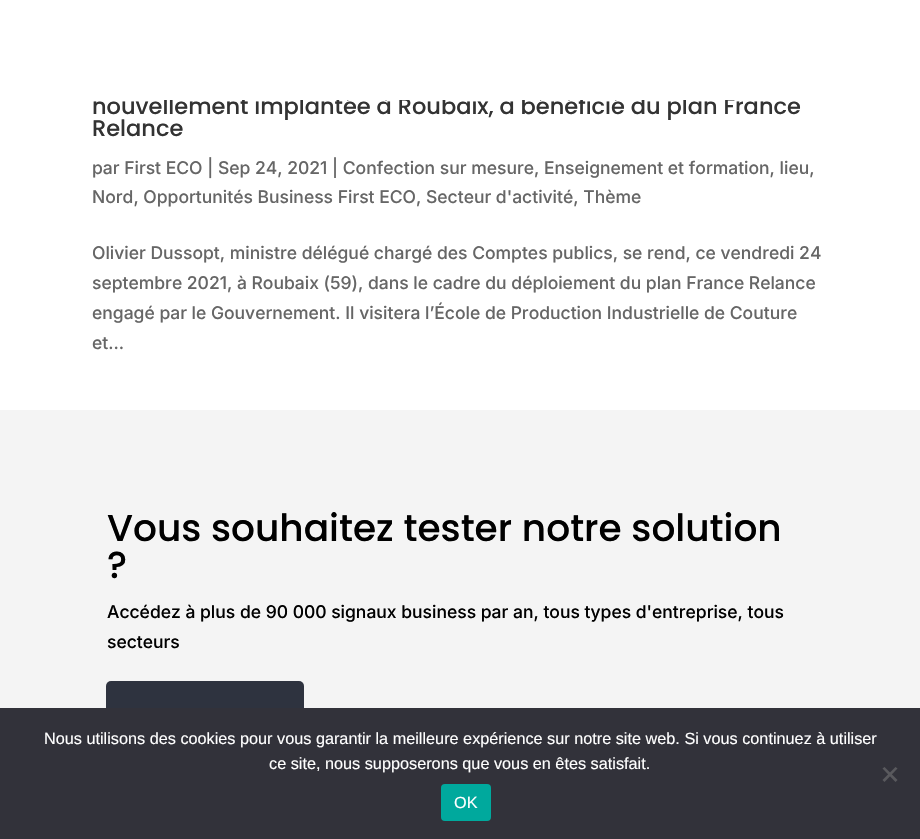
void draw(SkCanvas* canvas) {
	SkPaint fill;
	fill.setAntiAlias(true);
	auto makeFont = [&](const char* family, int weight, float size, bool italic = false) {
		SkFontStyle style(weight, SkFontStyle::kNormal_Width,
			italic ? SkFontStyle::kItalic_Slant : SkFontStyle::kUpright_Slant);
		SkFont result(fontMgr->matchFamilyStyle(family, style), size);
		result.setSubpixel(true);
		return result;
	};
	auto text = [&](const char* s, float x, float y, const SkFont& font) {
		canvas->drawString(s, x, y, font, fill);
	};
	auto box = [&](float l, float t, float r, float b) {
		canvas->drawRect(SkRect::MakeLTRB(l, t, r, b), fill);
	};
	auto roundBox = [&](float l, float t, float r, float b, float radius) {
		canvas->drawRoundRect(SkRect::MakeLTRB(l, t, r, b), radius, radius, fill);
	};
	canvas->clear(0xFFFFFFFF);
	fill.setColor(0xFFF4F4F4);
	box(0, 410, 920, 708);
	fill.setColor(0xFF2E333F);
	roundBox(106, 681, 304, 739, 5);
	fill.setColor(0xFF32323A);
	box(0, 708, 920, 839);
	fill.setColor(0xFF59595D);
	canvas->drawPath(SkPathBuilder().moveTo(895.5f, 767).lineTo(897.5f, 768.5f).lineTo(884.5f, 782).lineTo(882.5f, 780).close().detach(), fill);
	canvas->drawPath(SkPathBuilder().moveTo(882.5f, 768.5f).lineTo(884.5f, 767).lineTo(897.5f, 780).lineTo(895.5f, 782).close().detach(), fill);
	fill.setColor(0xFF00A99D);
	roundBox(441, 784, 491, 821, 4);
	auto font1 = makeFont("Poppins", 500, 22.5f);
	fill.setColor(0xFF333333);
	text("nouvellement implantée à Roubaix, a bénéficié du plan France", 92, 114, font1);
	text("Relance", 92, 136, font1);
	auto font2 = makeFont("Inter", 500, 17.5f);
	fill.setColor(0xFF666666);
	text("par First ECO | Sep 24, 2021 | Confection sur mesure, Enseignement et formation, lieu,", 92, 174, font2);
	text("Nord, Opportunités Business First ECO, Secteur d'activité, Thème", 92, 203, font2);
	text("Olivier Dussopt, ministre délégué chargé des Comptes publics, se rend, ce vendredi 24", 92, 259, font2);
	text("septembre 2021, à Roubaix (59), dans le cadre du déploiement du plan France Relance", 92, 289, font2);
	text("engagé par le Gouvernement. Il visitera l’École de Production Industrielle de Couture", 92, 319, font2);
	text("et...", 92, 349, font2);
	auto font3 = makeFont("Poppins", 500, 37.5f);
	fill.setColor(0xFF000000);
	text("Vous souhaitez tester notre solution", 107, 541, font3);
	text("?", 107, 578, font3);
	text("Accédez à plus de 90 000 signaux business par an, tous types d'entreprise, tous", 107, 618, font2);
	text("secteurs", 107, 648, font2);
	fill.setColor(0xFFFFFFFF);
	box(164, 96, 735, 100);
	auto font4 = makeFont("Liberation Sans", 400, 16.25f);
	text("Nous utilisons des cookies pour vous garantir la meilleure expérience sur notre site web. Si vous continuez à utiliser", 44, 744, font4);
	text("ce site, nous supposerons que vous en êtes satisfait.", 269, 769, font4);
	text("OK", 454, 808, font4);
}
